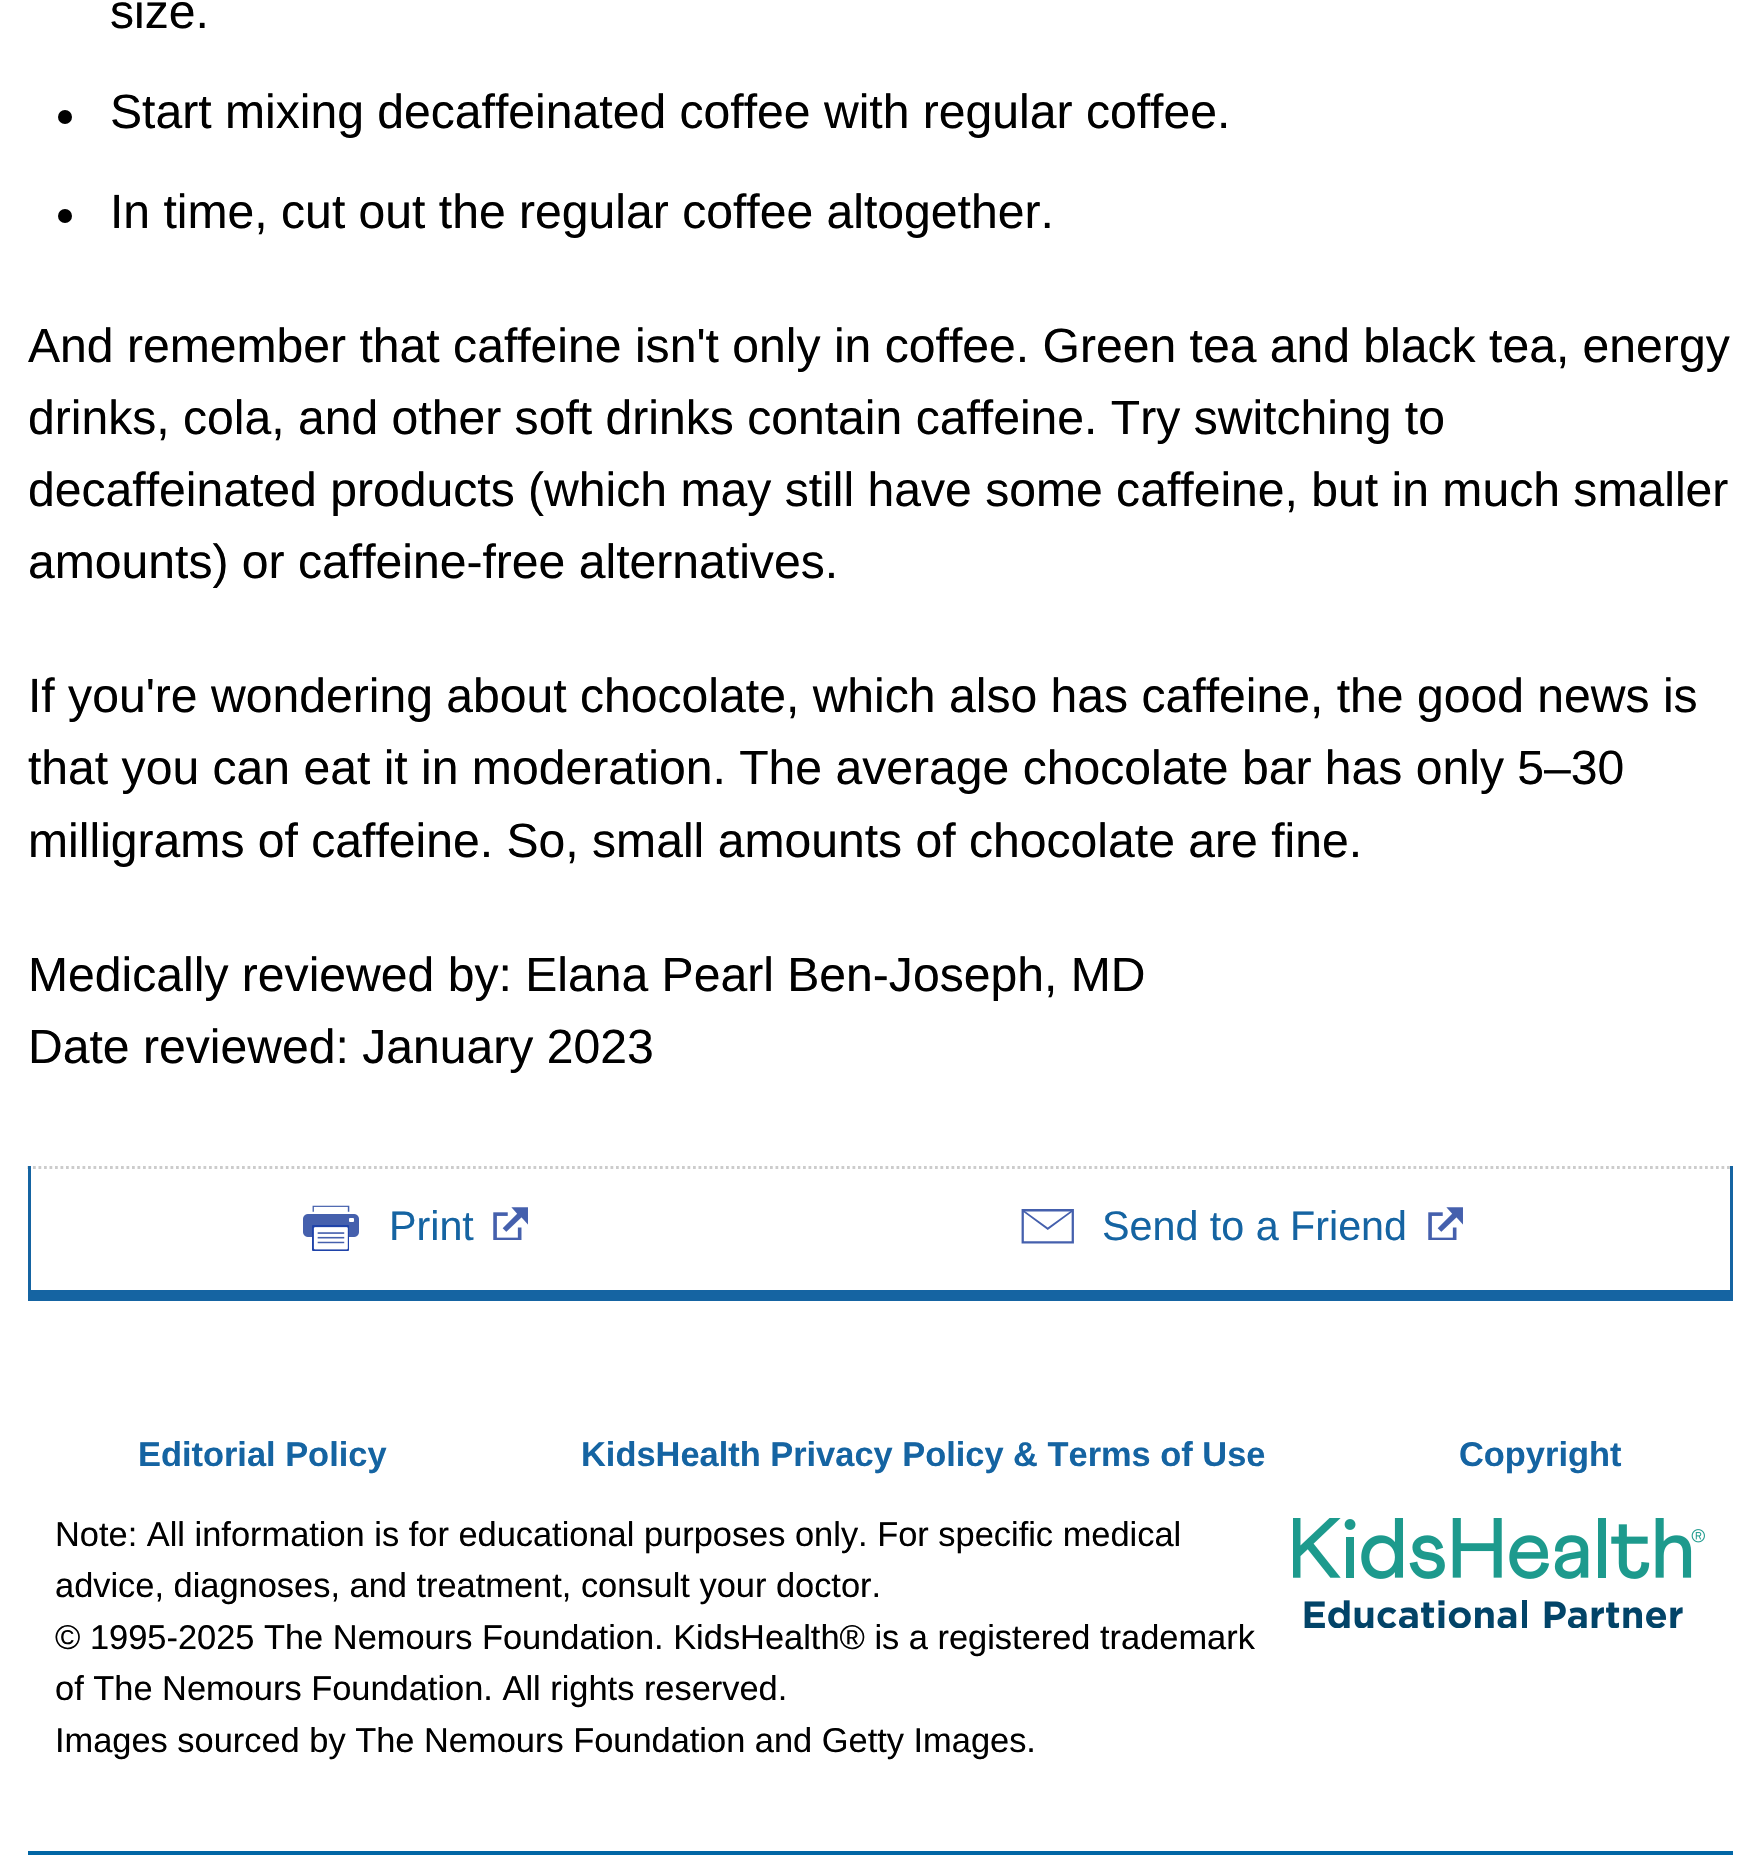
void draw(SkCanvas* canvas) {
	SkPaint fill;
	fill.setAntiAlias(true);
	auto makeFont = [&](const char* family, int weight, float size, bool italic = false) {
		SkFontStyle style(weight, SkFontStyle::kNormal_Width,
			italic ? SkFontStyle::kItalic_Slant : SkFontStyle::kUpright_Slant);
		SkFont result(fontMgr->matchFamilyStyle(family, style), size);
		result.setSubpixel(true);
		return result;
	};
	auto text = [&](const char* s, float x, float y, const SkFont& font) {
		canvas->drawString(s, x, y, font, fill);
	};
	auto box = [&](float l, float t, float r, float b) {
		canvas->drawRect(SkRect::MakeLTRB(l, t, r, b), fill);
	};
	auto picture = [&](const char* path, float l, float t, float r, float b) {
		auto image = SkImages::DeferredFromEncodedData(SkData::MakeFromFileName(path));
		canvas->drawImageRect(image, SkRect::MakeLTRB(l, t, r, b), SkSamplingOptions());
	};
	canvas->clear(0xFFFFFFFF);
	fill.setColor(0xFF000000);
	canvas->drawCircle(65, 117, 7, fill);
	canvas->drawCircle(65, 216, 7, fill);
	fill.setStyle(SkPaint::kStroke_Style);
	fill.setStrokeWidth(2.8f);
	fill.setColor(0xFFCCCCCC);
	fill.setPathEffect(SkDashPathEffect::Make({{2.75f, 2.75f}}, 0));
	canvas->drawPath(SkPathBuilder().moveTo(27.5f, 1167.5f).lineTo(1732.5f, 1167.5f).detach(), fill);
	fill.setPathEffect(nullptr);
	fill.setStyle(SkPaint::kFill_Style);
	fill.setColor(0xFF1564A2);
	box(1730, 1166, 1733, 1290);
	box(31, 1290, 1733, 1301);
	box(28, 1166, 31, 1301);
	picture("image0.png", 303, 1205, 359, 1251);
	picture("image1.png", 493, 1207, 528, 1240);
	picture("image2.png", 1021, 1209, 1074, 1244);
	picture("image1.png", 1428, 1207, 1463, 1240);
	picture("image3.png", 1293, 1518, 1705, 1628);
	fill.setColor(0xFF0166A5);
	box(28, 1851, 1733, 1855);
	auto font1 = makeFont("Liberation Sans", 400, 48.1f);
	fill.setColor(0xFF000000);
	text("size.", 110, 28, font1);
	text("Start mixing decaffeinated coffee with regular coffee.", 110, 128, font1);
	text("In time, cut out the regular coffee altogether.", 110, 228, font1);
	text("And remember that caffeine isn't only in coffee. Green tea and black tea, energy", 28, 362, font1);
	text("drinks, cola, and other soft drinks contain caffeine. Try switching to", 28, 434, font1);
	text("decaffeinated products (which may still have some caffeine, but in much smaller", 28, 506, font1);
	text("amounts) or caffeine-free alternatives.", 28, 578, font1);
	text("If you're wondering about chocolate, which also has caffeine, the good news is", 28, 712, font1);
	text("that you can eat it in moderation. The average chocolate bar has only 5–30", 28, 784, font1);
	text("milligrams of caffeine. So, small amounts of chocolate are fine.", 28, 857, font1);
	text("Medically reviewed by: Elana Pearl Ben-Joseph, MD", 28, 991, font1);
	text("Date reviewed: January 2023", 28, 1063, font1);
	auto font2 = makeFont("Liberation Sans", 400, 41.25f);
	fill.setColor(0xFF1564A2);
	text("Print", 389, 1240, font2);
	text("Send to a Friend", 1102, 1240, font2);
	auto font3 = makeFont("Liberation Sans", 700, 34.4f);
	text("Editorial Policy", 138, 1466, font3);
	text("KidsHealth Privacy Policy & Terms of Use", 581, 1466, font3);
	text("Copyright", 1459, 1466, font3);
	auto font4 = makeFont("Liberation Sans", 400, 34.4f);
	fill.setColor(0xFF000000);
	text("Note: All information is for educational purposes only. For specific medical", 55, 1546, font4);
	text("advice, diagnoses, and treatment, consult your doctor.", 55, 1597, font4);
	text("© 1995-2025 The Nemours Foundation. KidsHealth® is a registered trademark", 55, 1649, font4);
	text("of The Nemours Foundation. All rights reserved.", 55, 1700, font4);
	text("Images sourced by The Nemours Foundation and Getty Images.", 55, 1752, font4);
}
